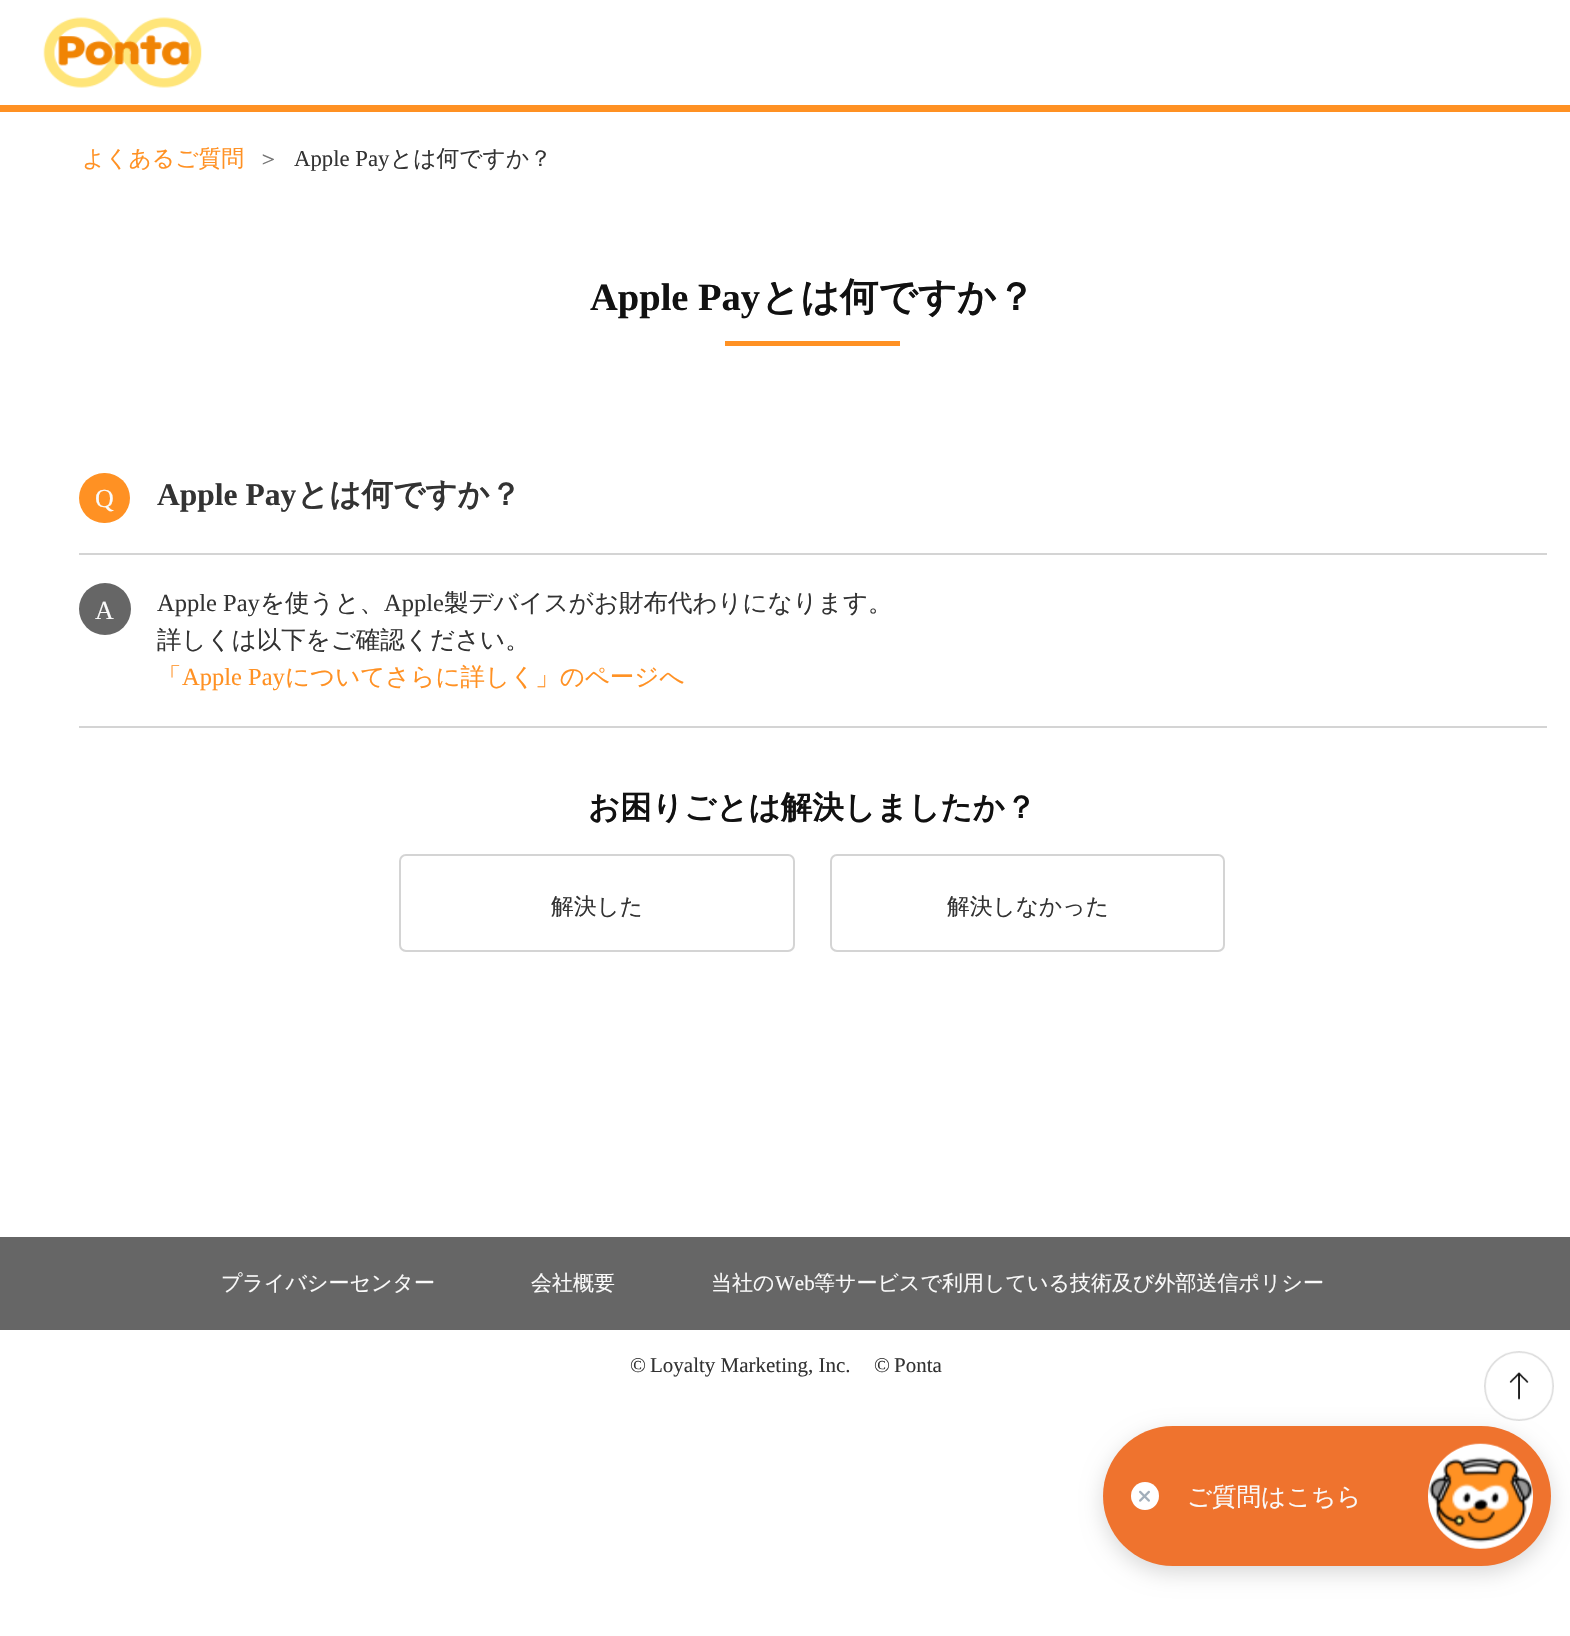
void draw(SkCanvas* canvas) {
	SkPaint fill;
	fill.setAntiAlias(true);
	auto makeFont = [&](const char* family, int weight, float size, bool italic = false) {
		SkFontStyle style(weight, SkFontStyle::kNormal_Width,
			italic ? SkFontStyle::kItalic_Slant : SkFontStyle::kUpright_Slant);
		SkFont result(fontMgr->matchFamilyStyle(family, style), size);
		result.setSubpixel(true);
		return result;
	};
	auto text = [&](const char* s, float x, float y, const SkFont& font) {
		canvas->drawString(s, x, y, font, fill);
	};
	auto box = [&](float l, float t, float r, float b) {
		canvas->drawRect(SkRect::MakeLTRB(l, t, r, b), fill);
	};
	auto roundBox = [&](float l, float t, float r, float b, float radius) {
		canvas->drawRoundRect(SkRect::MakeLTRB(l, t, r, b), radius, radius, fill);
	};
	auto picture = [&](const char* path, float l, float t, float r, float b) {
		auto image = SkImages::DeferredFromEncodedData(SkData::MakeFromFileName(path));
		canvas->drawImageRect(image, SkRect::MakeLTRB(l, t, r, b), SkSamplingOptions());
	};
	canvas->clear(0xFFFFFFFF);
	fill.setColor(0xFFFF9123);
	box(0, 105, 1570, 112);
	picture("image0.png", 43, 17, 202, 88);
	box(725, 341, 900, 346);
	fill.setColor(0xFFD4D4D4);
	box(79, 553, 1547, 555);
	fill.setColor(0xFFFF9123);
	roundBox(79, 473, 130, 523, 25);
	fill.setColor(0xFFD4D4D4);
	box(79, 726, 1547, 728);
	fill.setColor(0xFF666666);
	canvas->drawCircle(105, 609, 26, fill);
	fill.setStyle(SkPaint::kStroke_Style);
	fill.setStrokeWidth(2);
	fill.setColor(0xFFD4D4D4);
	canvas->drawRoundRect(SkRect::MakeLTRB(400, 855, 794, 951), 6, 6, fill);
	canvas->drawRoundRect(SkRect::MakeLTRB(831, 855, 1224, 951), 6, 6, fill);
	fill.setStyle(SkPaint::kFill_Style);
	fill.setColor(0xFF666666);
	box(0, 1237, 1570, 1330);
	picture("image1.png", 1484, 1351, 1554, 1421);
	fill.setColor(0x26000000);
	fill.setMaskFilter(SkMaskFilter::MakeBlur(kNormal_SkBlurStyle, 10.5f));
	canvas->drawRoundRect(SkRect::MakeLTRB(1103, 1433, 1551, 1573), 70, 70, fill);
	fill.setMaskFilter(nullptr);
	fill.setColor(0xFFEF732E);
	roundBox(1103, 1426, 1551, 1566, 70);
	fill.setColor(0xFFFFFFFF);
	canvas->drawCircle(1145, 1496, 14, fill);
	picture("image2.png", 1139, 1490, 1150, 1502);
	picture("image3.png", 1428, 1443, 1533, 1549);
	auto font1 = makeFont("WenQuanYi Zen Hei", 500, 22.75f);
	fill.setColor(0xFFFF9123);
	text("よくあるご質問", 82, 166, font1);
	fill.setColor(0xFF757575);
	text("＞", 257, 166, font1);
	auto font2 = makeFont("Liberation Serif", 400, 22.75f);
	fill.setColor(0xFF333333);
	text("Apple Pay", 294, 166, font2);
	text("とは何ですか？", 390, 166, font1);
	auto font3 = makeFont("Liberation Serif", 700, 38.5f);
	fill.setColor(0xFF111111);
	text("Apple Pay", 590, 310, font3);
	auto font4 = makeFont("WenQuanYi Zen Hei", 700, 38.5f);
	text("とは何ですか？", 761, 310, font4);
	auto font5 = makeFont("Liberation Serif", 400, 26);
	fill.setColor(0xFFFAFAFA);
	text("Q", 95, 507, font5);
	auto font6 = makeFont("Liberation Serif", 700, 31.5f);
	fill.setColor(0xFF333333);
	text("Apple Pay", 157, 505, font6);
	auto font7 = makeFont("WenQuanYi Zen Hei", 700, 31.5f);
	text("とは何ですか？", 297, 505, font7);
	fill.setColor(0xFFFAFAFA);
	text("A", 95, 619, font5);
	auto font8 = makeFont("Liberation Serif", 400, 24.5f);
	fill.setColor(0xFF333333);
	text("Apple Pay", 157, 611, font8);
	auto font9 = makeFont("WenQuanYi Zen Hei", 500, 24.5f);
	text("を使うと、", 260, 611, font9);
	text("Apple", 384, 611, font8);
	text("製デバイスがお財布代わりになります。", 444, 611, font9);
	text("詳しくは以下をご確認ください。", 157, 648, font9);
	fill.setColor(0xFFFF9123);
	text("「", 157, 685, font9);
	text("Apple Pay", 182, 685, font8);
	text("についてさらに詳しく」のページへ", 285, 685, font9);
	fill.setColor(0xFF111111);
	text("お困りごとは解決しましたか？", 588, 818, font7);
	fill.setColor(0xFF333333);
	text("解決した", 551, 914, font1);
	text("解決しなかった", 947, 914, font1);
	auto font10 = makeFont("WenQuanYi Zen Hei", 500, 21);
	fill.setColor(0xFFFAFAFA);
	text("プライバシーセンター", 221, 1290, font10);
	text("会社概要", 531, 1290, font10);
	text("当社の", 711, 1290, font10);
	auto font11 = makeFont("Liberation Serif", 400, 21);
	text("Web", 775, 1290, font11);
	text("等サービスで利用している技術及び外部送信ポリシー", 814, 1290, font10);
	fill.setColor(0xFF333333);
	text("©", 630, 1372, font11);
	text("Loyalty Marketing, Inc.", 650, 1372, font11);
	text("©", 874, 1372, font11);
	text("Ponta", 894, 1372, font11);
	fill.setColor(0xFFFAFAFA);
	text("ご質問はこちら", 1187, 1505, font9);
}
